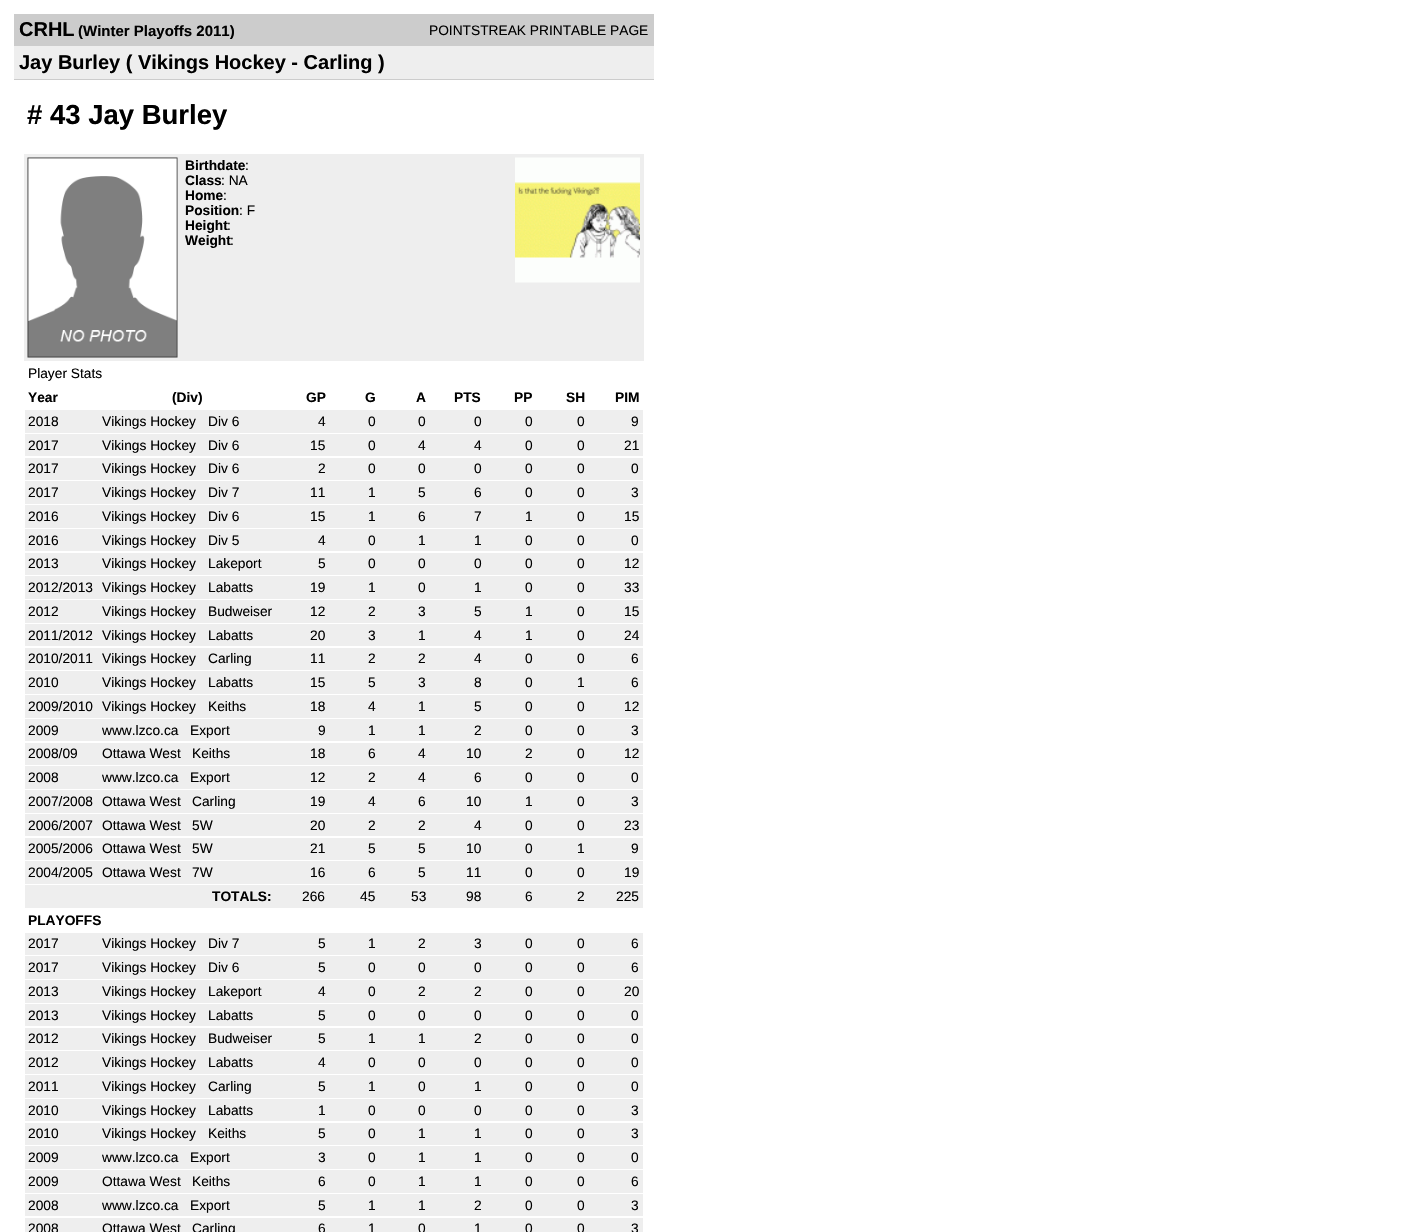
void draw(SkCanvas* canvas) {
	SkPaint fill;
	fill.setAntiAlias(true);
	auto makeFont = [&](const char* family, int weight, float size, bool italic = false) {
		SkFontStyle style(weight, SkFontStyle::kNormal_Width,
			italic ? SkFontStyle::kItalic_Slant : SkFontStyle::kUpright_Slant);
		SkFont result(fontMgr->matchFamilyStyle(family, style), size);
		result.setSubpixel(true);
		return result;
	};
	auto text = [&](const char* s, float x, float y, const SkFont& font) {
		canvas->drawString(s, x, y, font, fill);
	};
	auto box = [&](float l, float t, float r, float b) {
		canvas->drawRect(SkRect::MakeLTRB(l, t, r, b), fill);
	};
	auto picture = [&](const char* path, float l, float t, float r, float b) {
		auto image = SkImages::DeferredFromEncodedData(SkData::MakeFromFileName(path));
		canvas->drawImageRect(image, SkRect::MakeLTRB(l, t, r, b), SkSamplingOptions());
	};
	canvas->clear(0xFFFFFFFF);
	fill.setColor(0xFFCCCCCC);
	box(14, 14, 654, 46);
	fill.setColor(0xFFEEEEEE);
	box(14, 46, 654, 79);
	fill.setColor(0xFFCCCCCC);
	box(14, 79, 654, 80);
	fill.setColor(0xFFEEEEEE);
	box(24, 154, 644, 361);
	picture("image0.png", 27, 157, 178, 358);
	picture("image1.png", 515, 157, 640, 283);
	box(25, 410, 643, 433);
	box(25, 434, 643, 456);
	box(25, 458, 643, 480);
	box(25, 481, 643, 504);
	box(25, 505, 643, 528);
	box(25, 529, 643, 551);
	box(25, 553, 643, 575);
	box(25, 576, 643, 599);
	box(25, 600, 643, 623);
	box(25, 624, 643, 646);
	box(25, 648, 643, 670);
	box(25, 671, 643, 694);
	box(25, 695, 643, 718);
	box(25, 719, 643, 741);
	box(25, 743, 643, 765);
	box(25, 766, 643, 789);
	box(25, 790, 643, 813);
	box(25, 814, 643, 836);
	box(25, 838, 643, 860);
	box(25, 861, 643, 884);
	box(25, 885, 643, 908);
	box(25, 933, 643, 955);
	box(25, 956, 643, 979);
	box(25, 980, 643, 1003);
	box(25, 1004, 643, 1026);
	box(25, 1028, 643, 1050);
	box(25, 1051, 643, 1074);
	box(25, 1075, 643, 1098);
	box(25, 1099, 643, 1121);
	box(25, 1123, 643, 1145);
	box(25, 1146, 643, 1169);
	box(25, 1170, 643, 1193);
	box(25, 1194, 643, 1216);
	box(25, 1218, 643, 1232);
	auto font1 = makeFont("Liberation Sans", 700, 20);
	fill.setColor(0xFF000000);
	text("CRHL", 19, 36, font1);
	auto font2 = makeFont("Liberation Sans", 700, 15);
	text("(Winter Playoffs 2011)", 78, 36, font2);
	auto font3 = makeFont("Liberation Sans", 400, 13.75f);
	text("POINTSTREAK PRINTABLE PAGE", 429, 35, font3);
	text("Jay Burley ( Vikings Hockey - Carling )", 19, 69, font1);
	auto font4 = makeFont("Liberation Sans", 700, 27.5f);
	text("# 43 Jay Burley", 27, 124, font4);
	auto font5 = makeFont("Liberation Sans", 700, 13.75f);
	text("Birthdate", 185, 170, font5);
	text(":", 245, 170, font3);
	text("Class", 185, 185, font5);
	text(": NA", 221, 185, font3);
	text("Home", 185, 200, font5);
	text(":", 223, 200, font3);
	text("Position", 185, 215, font5);
	text(": F", 239, 215, font3);
	text("Height", 185, 230, font5);
	text(":", 227, 230, font3);
	text("Weight", 185, 245, font5);
	text(":", 230, 245, font3);
	text("Player Stats", 28, 378, font3);
	text("Year", 28, 402, font5);
	text("(Div)", 172, 402, font5);
	text("GP", 306, 402, font5);
	text("G", 365, 402, font5);
	text("A", 416, 402, font5);
	text("PTS", 454, 402, font5);
	text("PP", 514, 402, font5);
	text("SH", 566, 402, font5);
	text("PIM", 615, 402, font5);
	text("2018", 28, 426, font3);
	text("Vikings Hockey", 102, 426, font3);
	text("Div 6", 208, 426, font3);
	text("4", 318, 426, font3);
	text("0", 368, 426, font3);
	text("0", 418, 426, font3);
	text("0", 474, 426, font3);
	text("0", 525, 426, font3);
	text("0", 577, 426, font3);
	text("9", 631, 426, font3);
	text("2017", 28, 450, font3);
	text("Vikings Hockey", 102, 450, font3);
	text("Div 6", 208, 450, font3);
	text("15", 310, 450, font3);
	text("0", 368, 450, font3);
	text("4", 418, 450, font3);
	text("4", 474, 450, font3);
	text("0", 525, 450, font3);
	text("0", 577, 450, font3);
	text("21", 624, 450, font3);
	text("2017", 28, 473, font3);
	text("Vikings Hockey", 102, 473, font3);
	text("Div 6", 208, 473, font3);
	text("2", 318, 473, font3);
	text("0", 368, 473, font3);
	text("0", 418, 473, font3);
	text("0", 474, 473, font3);
	text("0", 525, 473, font3);
	text("0", 577, 473, font3);
	text("0", 631, 473, font3);
	text("2017", 28, 497, font3);
	text("Vikings Hockey", 102, 497, font3);
	text("Div 7", 208, 497, font3);
	text("11", 310, 497, font3);
	text("1", 368, 497, font3);
	text("5", 418, 497, font3);
	text("6", 474, 497, font3);
	text("0", 525, 497, font3);
	text("0", 577, 497, font3);
	text("3", 631, 497, font3);
	text("2016", 28, 521, font3);
	text("Vikings Hockey", 102, 521, font3);
	text("Div 6", 208, 521, font3);
	text("15", 310, 521, font3);
	text("1", 368, 521, font3);
	text("6", 418, 521, font3);
	text("7", 474, 521, font3);
	text("1", 525, 521, font3);
	text("0", 577, 521, font3);
	text("15", 624, 521, font3);
	text("2016", 28, 545, font3);
	text("Vikings Hockey", 102, 545, font3);
	text("Div 5", 208, 545, font3);
	text("4", 318, 545, font3);
	text("0", 368, 545, font3);
	text("1", 418, 545, font3);
	text("1", 474, 545, font3);
	text("0", 525, 545, font3);
	text("0", 577, 545, font3);
	text("0", 631, 545, font3);
	text("2013", 28, 568, font3);
	text("Vikings Hockey", 102, 568, font3);
	text("Lakeport", 208, 568, font3);
	text("5", 318, 568, font3);
	text("0", 368, 568, font3);
	text("0", 418, 568, font3);
	text("0", 474, 568, font3);
	text("0", 525, 568, font3);
	text("0", 577, 568, font3);
	text("12", 624, 568, font3);
	text("2012/2013", 28, 592, font3);
	text("Vikings Hockey", 102, 592, font3);
	text("Labatts", 208, 592, font3);
	text("19", 310, 592, font3);
	text("1", 368, 592, font3);
	text("0", 418, 592, font3);
	text("1", 474, 592, font3);
	text("0", 525, 592, font3);
	text("0", 577, 592, font3);
	text("33", 624, 592, font3);
	text("2012", 28, 616, font3);
	text("Vikings Hockey", 102, 616, font3);
	text("Budweiser", 208, 616, font3);
	text("12", 310, 616, font3);
	text("2", 368, 616, font3);
	text("3", 418, 616, font3);
	text("5", 474, 616, font3);
	text("1", 525, 616, font3);
	text("0", 577, 616, font3);
	text("15", 624, 616, font3);
	text("2011/2012", 28, 640, font3);
	text("Vikings Hockey", 102, 640, font3);
	text("Labatts", 208, 640, font3);
	text("20", 310, 640, font3);
	text("3", 368, 640, font3);
	text("1", 418, 640, font3);
	text("4", 474, 640, font3);
	text("1", 525, 640, font3);
	text("0", 577, 640, font3);
	text("24", 624, 640, font3);
	text("2010/2011", 28, 663, font3);
	text("Vikings Hockey", 102, 663, font3);
	text("Carling", 208, 663, font3);
	text("11", 310, 663, font3);
	text("2", 368, 663, font3);
	text("2", 418, 663, font3);
	text("4", 474, 663, font3);
	text("0", 525, 663, font3);
	text("0", 577, 663, font3);
	text("6", 631, 663, font3);
	text("2010", 28, 687, font3);
	text("Vikings Hockey", 102, 687, font3);
	text("Labatts", 208, 687, font3);
	text("15", 310, 687, font3);
	text("5", 368, 687, font3);
	text("3", 418, 687, font3);
	text("8", 474, 687, font3);
	text("0", 525, 687, font3);
	text("1", 577, 687, font3);
	text("6", 631, 687, font3);
	text("2009/2010", 28, 711, font3);
	text("Vikings Hockey", 102, 711, font3);
	text("Keiths", 208, 711, font3);
	text("18", 310, 711, font3);
	text("4", 368, 711, font3);
	text("1", 418, 711, font3);
	text("5", 474, 711, font3);
	text("0", 525, 711, font3);
	text("0", 577, 711, font3);
	text("12", 624, 711, font3);
	text("2009", 28, 735, font3);
	text("www.lzco.ca", 102, 735, font3);
	text("Export", 190, 735, font3);
	text("9", 318, 735, font3);
	text("1", 368, 735, font3);
	text("1", 418, 735, font3);
	text("2", 474, 735, font3);
	text("0", 525, 735, font3);
	text("0", 577, 735, font3);
	text("3", 631, 735, font3);
	text("2008/09", 28, 758, font3);
	text("Ottawa West", 102, 758, font3);
	text("Keiths", 192, 758, font3);
	text("18", 310, 758, font3);
	text("6", 368, 758, font3);
	text("4", 418, 758, font3);
	text("10", 466, 758, font3);
	text("2", 525, 758, font3);
	text("0", 577, 758, font3);
	text("12", 624, 758, font3);
	text("2008", 28, 782, font3);
	text("www.lzco.ca", 102, 782, font3);
	text("Export", 190, 782, font3);
	text("12", 310, 782, font3);
	text("2", 368, 782, font3);
	text("4", 418, 782, font3);
	text("6", 474, 782, font3);
	text("0", 525, 782, font3);
	text("0", 577, 782, font3);
	text("0", 631, 782, font3);
	text("2007/2008", 28, 806, font3);
	text("Ottawa West", 102, 806, font3);
	text("Carling", 192, 806, font3);
	text("19", 310, 806, font3);
	text("4", 368, 806, font3);
	text("6", 418, 806, font3);
	text("10", 466, 806, font3);
	text("1", 525, 806, font3);
	text("0", 577, 806, font3);
	text("3", 631, 806, font3);
	text("2006/2007", 28, 830, font3);
	text("Ottawa West", 102, 830, font3);
	text("5W", 192, 830, font3);
	text("20", 310, 830, font3);
	text("2", 368, 830, font3);
	text("2", 418, 830, font3);
	text("4", 474, 830, font3);
	text("0", 525, 830, font3);
	text("0", 577, 830, font3);
	text("23", 624, 830, font3);
	text("2005/2006", 28, 853, font3);
	text("Ottawa West", 102, 853, font3);
	text("5W", 192, 853, font3);
	text("21", 310, 853, font3);
	text("5", 368, 853, font3);
	text("5", 418, 853, font3);
	text("10", 466, 853, font3);
	text("0", 525, 853, font3);
	text("1", 577, 853, font3);
	text("9", 631, 853, font3);
	text("2004/2005", 28, 877, font3);
	text("Ottawa West", 102, 877, font3);
	text("7W", 192, 877, font3);
	text("16", 310, 877, font3);
	text("6", 368, 877, font3);
	text("5", 418, 877, font3);
	text("11", 466, 877, font3);
	text("0", 525, 877, font3);
	text("0", 577, 877, font3);
	text("19", 624, 877, font3);
	text("TOTALS:", 212, 901, font5);
	text("266", 302, 901, font3);
	text("45", 360, 901, font3);
	text("53", 411, 901, font3);
	text("98", 466, 901, font3);
	text("6", 525, 901, font3);
	text("2", 577, 901, font3);
	text("225", 616, 901, font3);
	text("PLAYOFFS", 28, 925, font5);
	text("2017", 28, 948, font3);
	text("Vikings Hockey", 102, 948, font3);
	text("Div 7", 208, 948, font3);
	text("5", 318, 948, font3);
	text("1", 368, 948, font3);
	text("2", 418, 948, font3);
	text("3", 474, 948, font3);
	text("0", 525, 948, font3);
	text("0", 577, 948, font3);
	text("6", 631, 948, font3);
	text("2017", 28, 972, font3);
	text("Vikings Hockey", 102, 972, font3);
	text("Div 6", 208, 972, font3);
	text("5", 318, 972, font3);
	text("0", 368, 972, font3);
	text("0", 418, 972, font3);
	text("0", 474, 972, font3);
	text("0", 525, 972, font3);
	text("0", 577, 972, font3);
	text("6", 631, 972, font3);
	text("2013", 28, 996, font3);
	text("Vikings Hockey", 102, 996, font3);
	text("Lakeport", 208, 996, font3);
	text("4", 318, 996, font3);
	text("0", 368, 996, font3);
	text("2", 418, 996, font3);
	text("2", 474, 996, font3);
	text("0", 525, 996, font3);
	text("0", 577, 996, font3);
	text("20", 624, 996, font3);
	text("2013", 28, 1020, font3);
	text("Vikings Hockey", 102, 1020, font3);
	text("Labatts", 208, 1020, font3);
	text("5", 318, 1020, font3);
	text("0", 368, 1020, font3);
	text("0", 418, 1020, font3);
	text("0", 474, 1020, font3);
	text("0", 525, 1020, font3);
	text("0", 577, 1020, font3);
	text("0", 631, 1020, font3);
	text("2012", 28, 1043, font3);
	text("Vikings Hockey", 102, 1043, font3);
	text("Budweiser", 208, 1043, font3);
	text("5", 318, 1043, font3);
	text("1", 368, 1043, font3);
	text("1", 418, 1043, font3);
	text("2", 474, 1043, font3);
	text("0", 525, 1043, font3);
	text("0", 577, 1043, font3);
	text("0", 631, 1043, font3);
	text("2012", 28, 1067, font3);
	text("Vikings Hockey", 102, 1067, font3);
	text("Labatts", 208, 1067, font3);
	text("4", 318, 1067, font3);
	text("0", 368, 1067, font3);
	text("0", 418, 1067, font3);
	text("0", 474, 1067, font3);
	text("0", 525, 1067, font3);
	text("0", 577, 1067, font3);
	text("0", 631, 1067, font3);
	text("2011", 28, 1091, font3);
	text("Vikings Hockey", 102, 1091, font3);
	text("Carling", 208, 1091, font3);
	text("5", 318, 1091, font3);
	text("1", 368, 1091, font3);
	text("0", 418, 1091, font3);
	text("1", 474, 1091, font3);
	text("0", 525, 1091, font3);
	text("0", 577, 1091, font3);
	text("0", 631, 1091, font3);
	text("2010", 28, 1115, font3);
	text("Vikings Hockey", 102, 1115, font3);
	text("Labatts", 208, 1115, font3);
	text("1", 318, 1115, font3);
	text("0", 368, 1115, font3);
	text("0", 418, 1115, font3);
	text("0", 474, 1115, font3);
	text("0", 525, 1115, font3);
	text("0", 577, 1115, font3);
	text("3", 631, 1115, font3);
	text("2010", 28, 1138, font3);
	text("Vikings Hockey", 102, 1138, font3);
	text("Keiths", 208, 1138, font3);
	text("5", 318, 1138, font3);
	text("0", 368, 1138, font3);
	text("1", 418, 1138, font3);
	text("1", 474, 1138, font3);
	text("0", 525, 1138, font3);
	text("0", 577, 1138, font3);
	text("3", 631, 1138, font3);
	text("2009", 28, 1162, font3);
	text("www.lzco.ca", 102, 1162, font3);
	text("Export", 190, 1162, font3);
	text("3", 318, 1162, font3);
	text("0", 368, 1162, font3);
	text("1", 418, 1162, font3);
	text("1", 474, 1162, font3);
	text("0", 525, 1162, font3);
	text("0", 577, 1162, font3);
	text("0", 631, 1162, font3);
	text("2009", 28, 1186, font3);
	text("Ottawa West", 102, 1186, font3);
	text("Keiths", 192, 1186, font3);
	text("6", 318, 1186, font3);
	text("0", 368, 1186, font3);
	text("1", 418, 1186, font3);
	text("1", 474, 1186, font3);
	text("0", 525, 1186, font3);
	text("0", 577, 1186, font3);
	text("6", 631, 1186, font3);
	text("2008", 28, 1210, font3);
	text("www.lzco.ca", 102, 1210, font3);
	text("Export", 190, 1210, font3);
	text("5", 318, 1210, font3);
	text("1", 368, 1210, font3);
	text("1", 418, 1210, font3);
	text("2", 474, 1210, font3);
	text("0", 525, 1210, font3);
	text("0", 577, 1210, font3);
	text("3", 631, 1210, font3);
	text("2008", 28, 1233, font3);
	text("Ottawa West", 102, 1233, font3);
	text("Carling", 192, 1233, font3);
	text("6", 318, 1233, font3);
	text("1", 368, 1233, font3);
	text("0", 418, 1233, font3);
	text("1", 474, 1233, font3);
	text("0", 525, 1233, font3);
	text("0", 577, 1233, font3);
	text("3", 631, 1233, font3);
}
